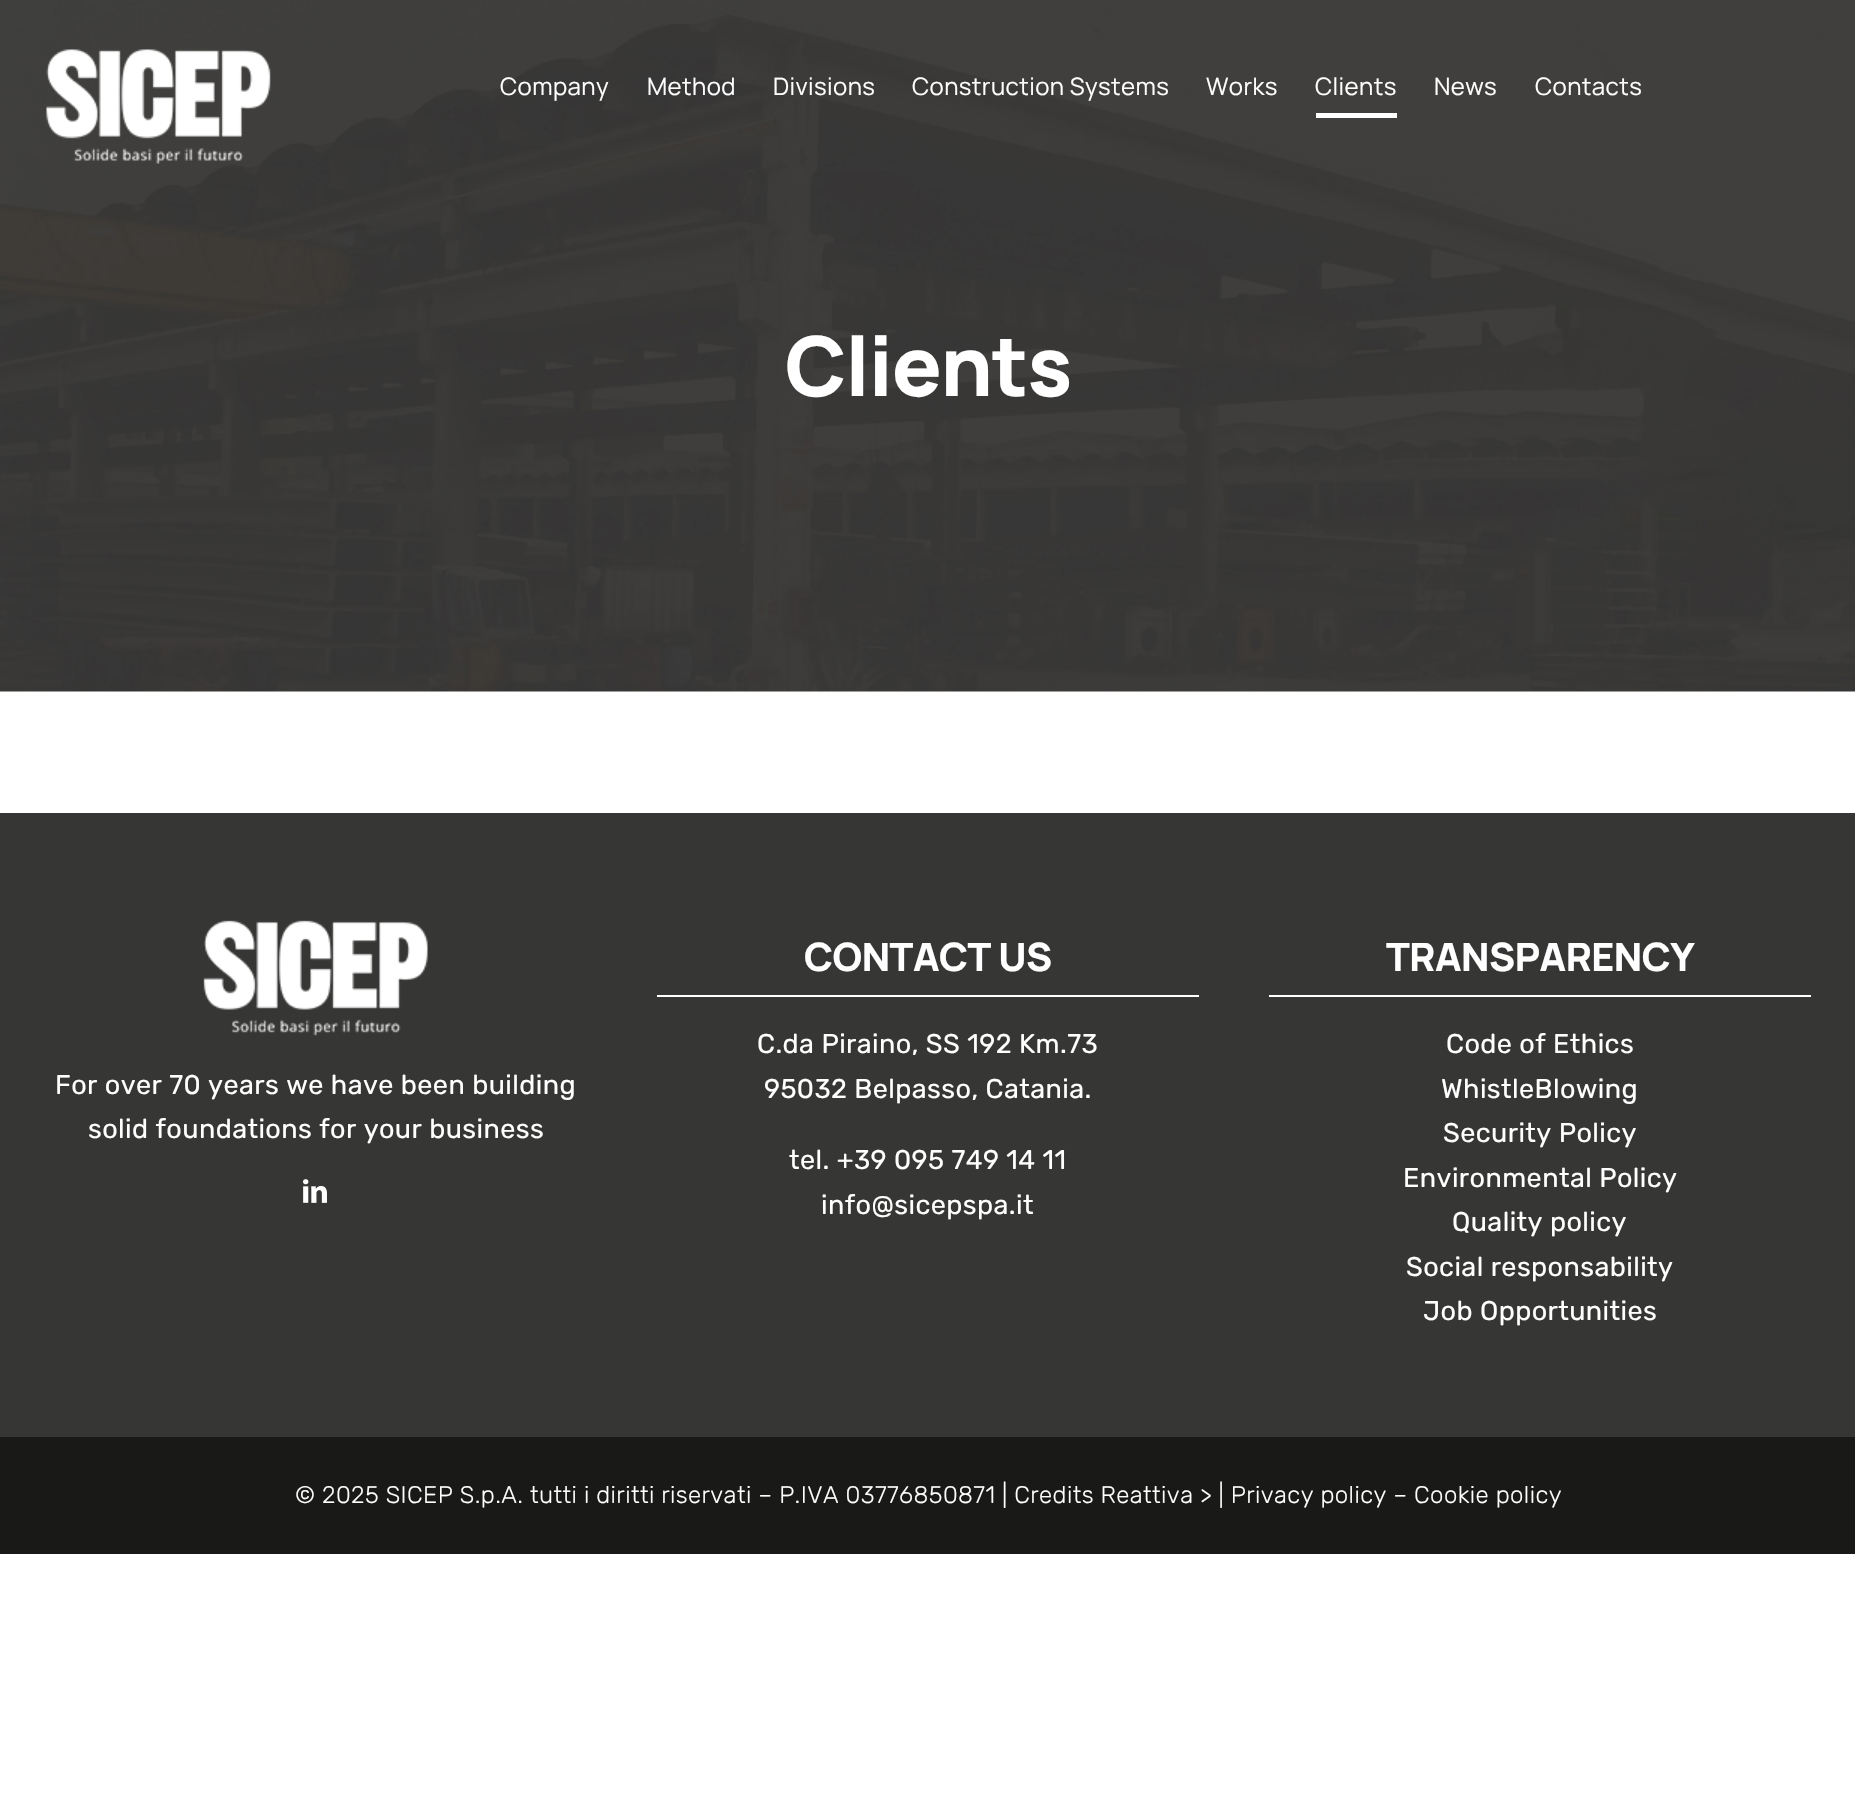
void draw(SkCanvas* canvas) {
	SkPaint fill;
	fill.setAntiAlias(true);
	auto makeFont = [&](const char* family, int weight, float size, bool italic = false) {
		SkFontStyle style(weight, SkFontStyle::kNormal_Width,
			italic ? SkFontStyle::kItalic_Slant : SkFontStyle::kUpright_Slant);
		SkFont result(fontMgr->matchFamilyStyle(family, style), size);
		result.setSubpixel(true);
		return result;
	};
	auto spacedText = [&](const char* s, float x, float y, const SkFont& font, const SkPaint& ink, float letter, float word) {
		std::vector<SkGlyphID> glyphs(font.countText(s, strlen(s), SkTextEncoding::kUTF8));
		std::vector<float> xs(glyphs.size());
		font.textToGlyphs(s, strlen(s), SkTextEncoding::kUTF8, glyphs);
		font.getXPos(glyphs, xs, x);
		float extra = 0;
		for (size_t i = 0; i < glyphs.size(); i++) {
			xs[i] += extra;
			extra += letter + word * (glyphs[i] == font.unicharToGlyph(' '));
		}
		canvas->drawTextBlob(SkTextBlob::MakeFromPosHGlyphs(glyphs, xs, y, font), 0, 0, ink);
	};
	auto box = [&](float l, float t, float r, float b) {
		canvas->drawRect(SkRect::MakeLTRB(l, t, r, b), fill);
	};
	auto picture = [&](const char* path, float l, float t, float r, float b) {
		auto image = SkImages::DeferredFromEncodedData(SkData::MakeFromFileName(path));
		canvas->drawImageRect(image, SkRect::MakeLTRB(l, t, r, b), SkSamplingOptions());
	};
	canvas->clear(0xFFFFFFFF);
	picture("image1.png", 0, 0, 1855, 692);
	picture("image0.png", 46, 49, 271, 164);
	fill.setColor(0xFFFFFFFF);
	box(1316, 113, 1397, 118);
	fill.setColor(0xFF363635);
	box(0, 813, 1855, 1437);
	picture("image2.png", 203, 920, 428, 1036);
	picture("image3.png", 303, 1179, 327, 1203);
	fill.setColor(0xFFFFFFFF);
	box(657, 995, 1199, 997);
	box(1269, 995, 1811, 997);
	fill.setColor(0xFF191918);
	box(0, 1437, 1855, 1554);
	auto font1 = makeFont("Manrope", 400, 24);
	fill.setColor(0xFFFFFFFF);
	spacedText("Company", 500, 95, font1, fill, 0.4f, 0);
	spacedText("Method", 647, 95, font1, fill, 0.4f, 0);
	spacedText("Divisions", 773, 95, font1, fill, 0.4f, 0);
	spacedText("Construction Systems", 912, 95, font1, fill, 0.4f, 0);
	spacedText("Works", 1206, 95, font1, fill, 0.4f, 0);
	spacedText("Clients", 1315, 95, font1, fill, 0.4f, 0);
	spacedText("News", 1434, 95, font1, fill, 0.4f, 0);
	spacedText("Contacts", 1535, 95, font1, fill, 0.4f, 0);
	auto font2 = makeFont("Manrope", 800, 82.5f);
	spacedText("Clients", 785, 396, font2, fill, -1.25f, 0);
	auto font3 = makeFont("Rubik", 400, 27);
	spacedText("For over 70 years we have been building", 55, 1094, font3, fill, 0.41f, 0);
	spacedText("solid foundations for your business", 88, 1138, font3, fill, 0.41f, 0);
	auto font4 = makeFont("Manrope", 800, 39);
	spacedText("CONTACT US", 804, 971, font4, fill, -0.5f, 0);
	spacedText("C.da Piraino, SS 192 Km.73", 757, 1053, font3, fill, 0.41f, 0);
	spacedText("95032 Belpasso, Catania.", 764, 1098, font3, fill, 0.41f, 0);
	spacedText("tel. +39 095 749 14 11", 789, 1169, font3, fill, 0.41f, 0);
	spacedText("info@sicepspa.it", 821, 1214, font3, fill, 0.41f, 0);
	spacedText("TRANSPARENCY", 1386, 971, font4, fill, -0.5f, 0);
	spacedText("Code of Ethics", 1446, 1053, font3, fill, 0.41f, 0);
	spacedText("WhistleBlowing", 1441, 1098, font3, fill, 0.41f, 0);
	spacedText("Security Policy", 1443, 1142, font3, fill, 0.41f, 0);
	spacedText("Environmental Policy", 1403, 1187, font3, fill, 0.41f, 0);
	spacedText("Quality policy", 1452, 1231, font3, fill, 0.41f, 0);
	spacedText("Social responsability", 1406, 1276, font3, fill, 0.41f, 0);
	spacedText("Job Opportunities", 1423, 1320, font3, fill, 0.41f, 0);
	auto font5 = makeFont("Rubik", 300, 24);
	spacedText("© 2025 SICEP S.p.A. tutti i diritti riservati – P.IVA 03776850871 | Credits Reattiva > | Privacy policy – Cookie policy", 295, 1503, font5, fill, 0.41f, 0);
}
